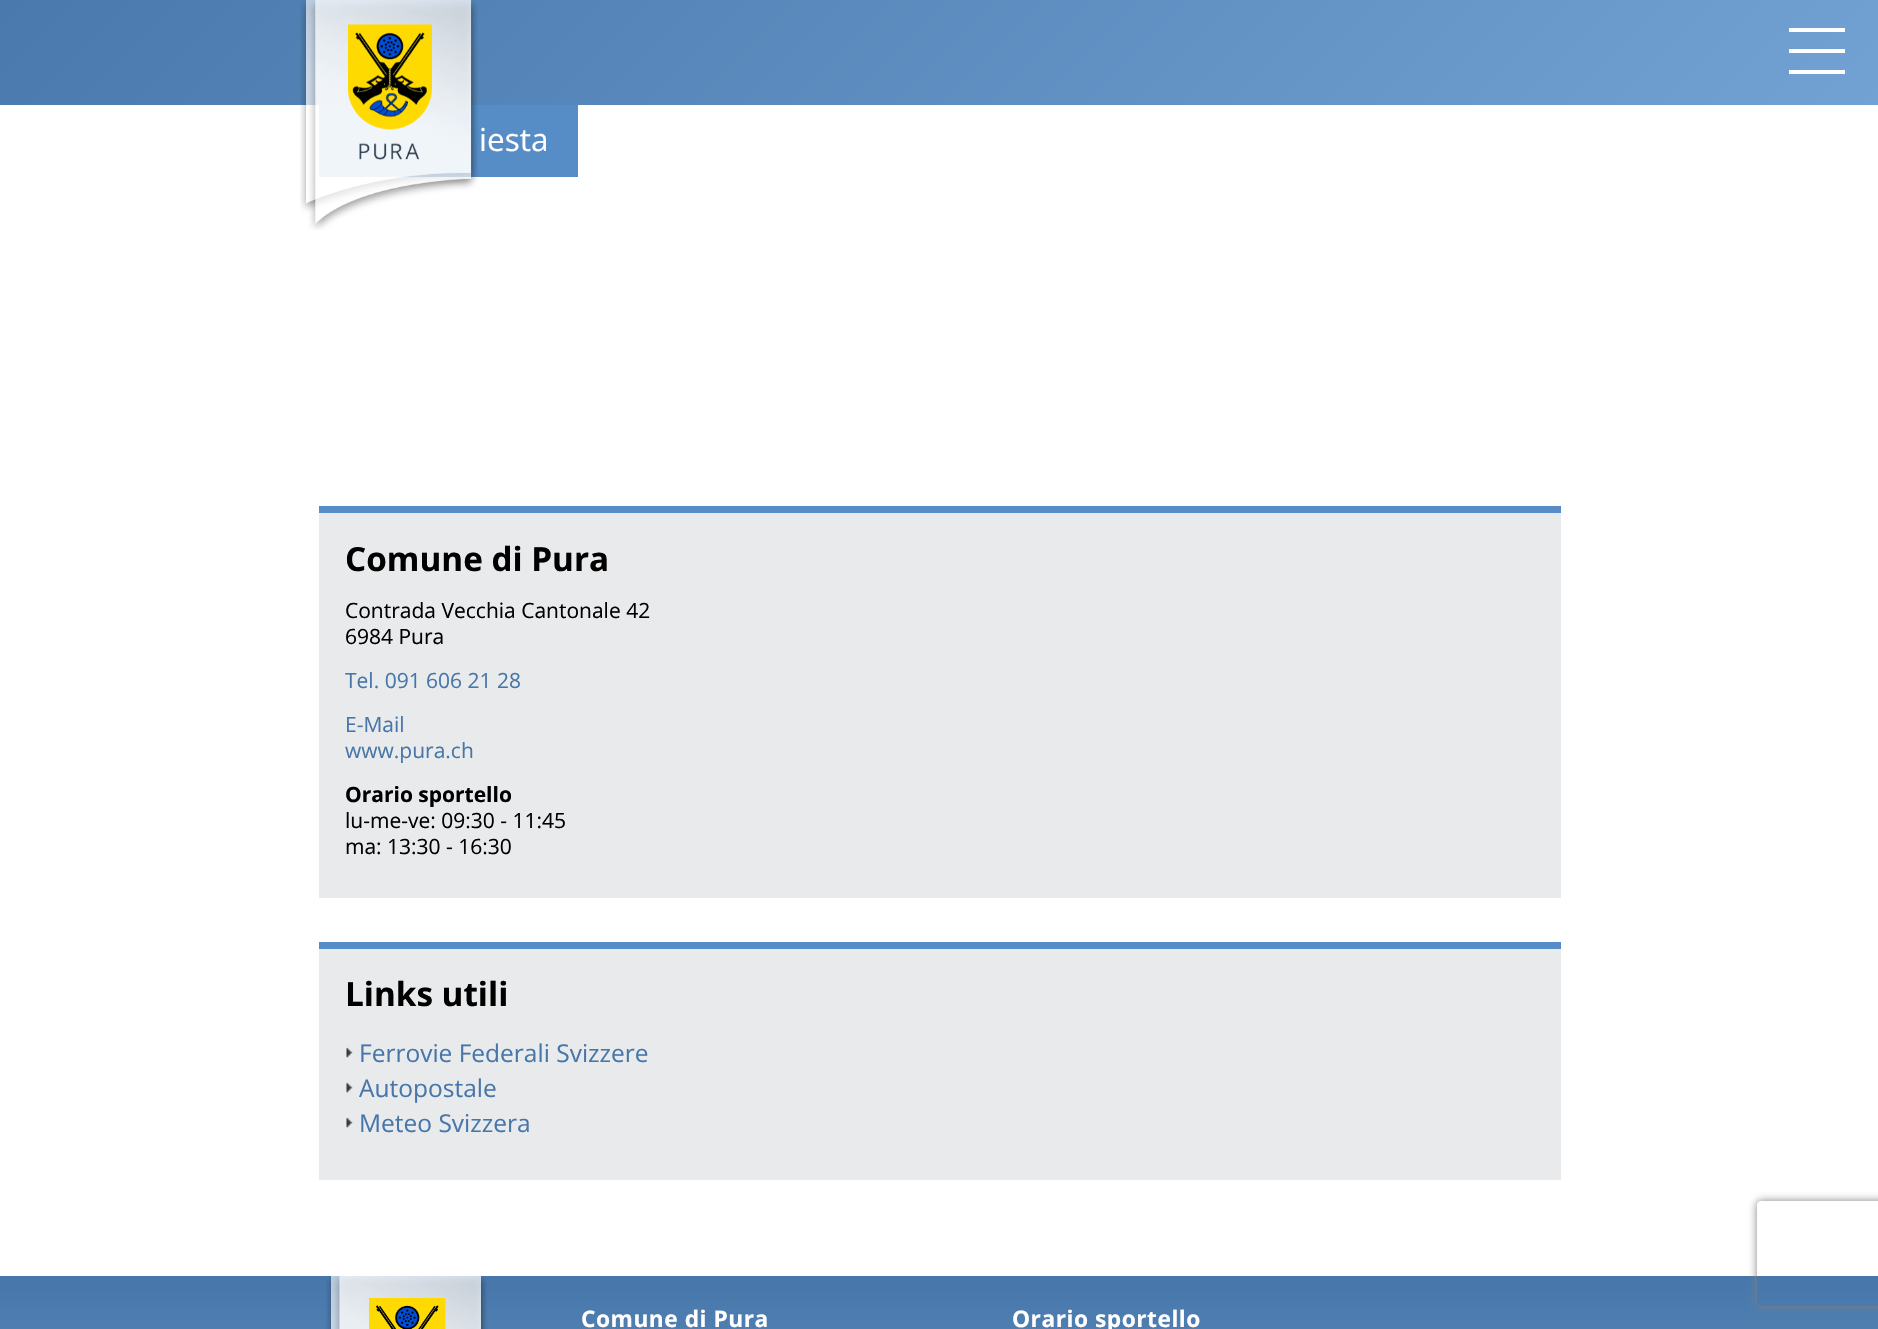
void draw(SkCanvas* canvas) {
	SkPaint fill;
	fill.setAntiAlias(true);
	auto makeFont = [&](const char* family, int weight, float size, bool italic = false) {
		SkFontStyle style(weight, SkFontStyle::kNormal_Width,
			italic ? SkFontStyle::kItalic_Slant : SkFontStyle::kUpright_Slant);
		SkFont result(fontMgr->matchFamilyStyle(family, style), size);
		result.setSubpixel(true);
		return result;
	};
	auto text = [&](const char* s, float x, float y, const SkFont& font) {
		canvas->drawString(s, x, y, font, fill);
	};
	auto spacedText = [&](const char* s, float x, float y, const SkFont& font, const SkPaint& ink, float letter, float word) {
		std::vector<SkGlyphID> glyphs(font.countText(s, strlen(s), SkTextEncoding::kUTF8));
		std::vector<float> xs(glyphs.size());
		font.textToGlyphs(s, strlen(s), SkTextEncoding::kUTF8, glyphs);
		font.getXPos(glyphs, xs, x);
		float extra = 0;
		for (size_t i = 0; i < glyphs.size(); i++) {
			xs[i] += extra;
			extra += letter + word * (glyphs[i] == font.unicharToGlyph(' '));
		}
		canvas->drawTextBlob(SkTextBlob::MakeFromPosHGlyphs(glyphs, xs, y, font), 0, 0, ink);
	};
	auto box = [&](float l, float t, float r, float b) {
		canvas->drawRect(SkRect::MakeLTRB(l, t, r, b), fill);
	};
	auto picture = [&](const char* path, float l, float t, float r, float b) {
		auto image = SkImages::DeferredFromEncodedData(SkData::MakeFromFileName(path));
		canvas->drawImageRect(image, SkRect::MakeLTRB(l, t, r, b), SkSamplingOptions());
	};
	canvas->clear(0xFFFFFFFF);
	{
		const SkColor colors[] = {0xFF4979AD, 0xFF72A2D3};
		const float stops[] = {0, 1};
		const SkPoint ends[] = {{444, -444}, {1436, 549}};
		fill.setShader(SkGradientShader::MakeLinear(ends, colors, stops, 2, SkTileMode::kClamp));
		fill.setAlpha(255);
	}
	box(0, 0, 1878, 105);
	fill.setShader(nullptr);
	fill.setColor(0xFF568DC6);
	box(319, 105, 578, 177);
	picture("image0.png", 300, 0, 478, 230);
	{
		const SkColor colors[] = {0xFF4777AA, 0xFF75A4D4};
		const float stops[] = {0, 1};
		const SkPoint ends[] = {{940, 1276}, {940, 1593}};
		fill.setShader(SkGradientShader::MakeLinear(ends, colors, stops, 2, SkTileMode::kClamp));
		fill.setAlpha(255);
	}
	box(0, 1276, 1878, 1329);
	canvas->save();
	canvas->clipPath(SkPathBuilder(SkPathFillType::kEvenOdd).moveTo(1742, 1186).lineTo(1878, 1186).lineTo(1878, 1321).lineTo(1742, 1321).close().moveTo(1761, 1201).lineTo(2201, 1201).cubicTo(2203, 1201, 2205, 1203, 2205, 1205).lineTo(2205, 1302).cubicTo(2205, 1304, 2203, 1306, 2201, 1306).lineTo(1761, 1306).cubicTo(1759, 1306, 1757, 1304, 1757, 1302).lineTo(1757, 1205).cubicTo(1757, 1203, 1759, 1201, 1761, 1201).close().detach(), true);
	fill.setShader(nullptr);
	fill.setColor(0xFF808080);
	fill.setMaskFilter(SkMaskFilter::MakeBlur(kNormal_SkBlurStyle, 4.5f));
	canvas->drawRoundRect(SkRect::MakeLTRB(1757, 1201, 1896, 1306), 4, 4, fill);
	fill.setMaskFilter(nullptr);
	canvas->restore();
	fill.setColor(0xFFE9EAEB);
	box(319, 513, 1561, 898);
	fill.setColor(0xFF568DC6);
	box(319, 506, 1561, 513);
	fill.setColor(0xFFE9EAEB);
	box(319, 949, 1561, 1180);
	fill.setColor(0xFF568DC6);
	box(319, 942, 1561, 949);
	picture("image1.png", 346, 1047, 353, 1058);
	picture("image1.png", 346, 1082, 353, 1093);
	picture("image1.png", 346, 1117, 353, 1128);
	fill.setColor(0xFFFFFFFF);
	box(1789, 28, 1845, 32);
	box(1789, 49, 1845, 53);
	box(1789, 70, 1845, 74);
	picture("image2.png", 325, 1276, 488, 1329);
	auto font1 = makeFont("Open Sans", 400, 31.5f);
	text("iesta", 479, 151, font1);
	auto font2 = makeFont("Open Sans", 700, 33.25f);
	fill.setColor(0xFF000000);
	text("Comune di Pura", 345, 571, font2);
	auto font3 = makeFont("Open Sans", 400, 21);
	text("Contrada Vecchia Cantonale 42", 345, 618, font3);
	text("6984 Pura", 345, 644, font3);
	fill.setColor(0xFF4777AA);
	text("Tel. 091 606 21 28", 345, 688, font3);
	text("E-Mail", 345, 732, font3);
	text("www.pura.ch", 345, 758, font3);
	auto font4 = makeFont("Open Sans", 700, 21);
	fill.setColor(0xFF000000);
	text("Orario sportello", 345, 802, font4);
	text("lu-me-ve: 09:30 - 11:45", 345, 828, font3);
	text("ma: 13:30 - 16:30", 345, 854, font3);
	text("Links utili", 345, 1006, font2);
	auto font5 = makeFont("Open Sans", 400, 24.5f);
	fill.setColor(0xFF4777AA);
	text("Ferrovie Federali Svizzere", 359, 1062, font5);
	text("Autopostale", 359, 1097, font5);
	text("Meteo Svizzera", 359, 1132, font5);
	auto font6 = makeFont("Open Sans", 700, 22.75f);
	fill.setColor(0xFFFFFFFF);
	spacedText("Comune di Pura", 581, 1327, font6, fill, 0.5f, 0);
	spacedText("Orario sportello", 1012, 1327, font6, fill, 0.5f, 0);
}
